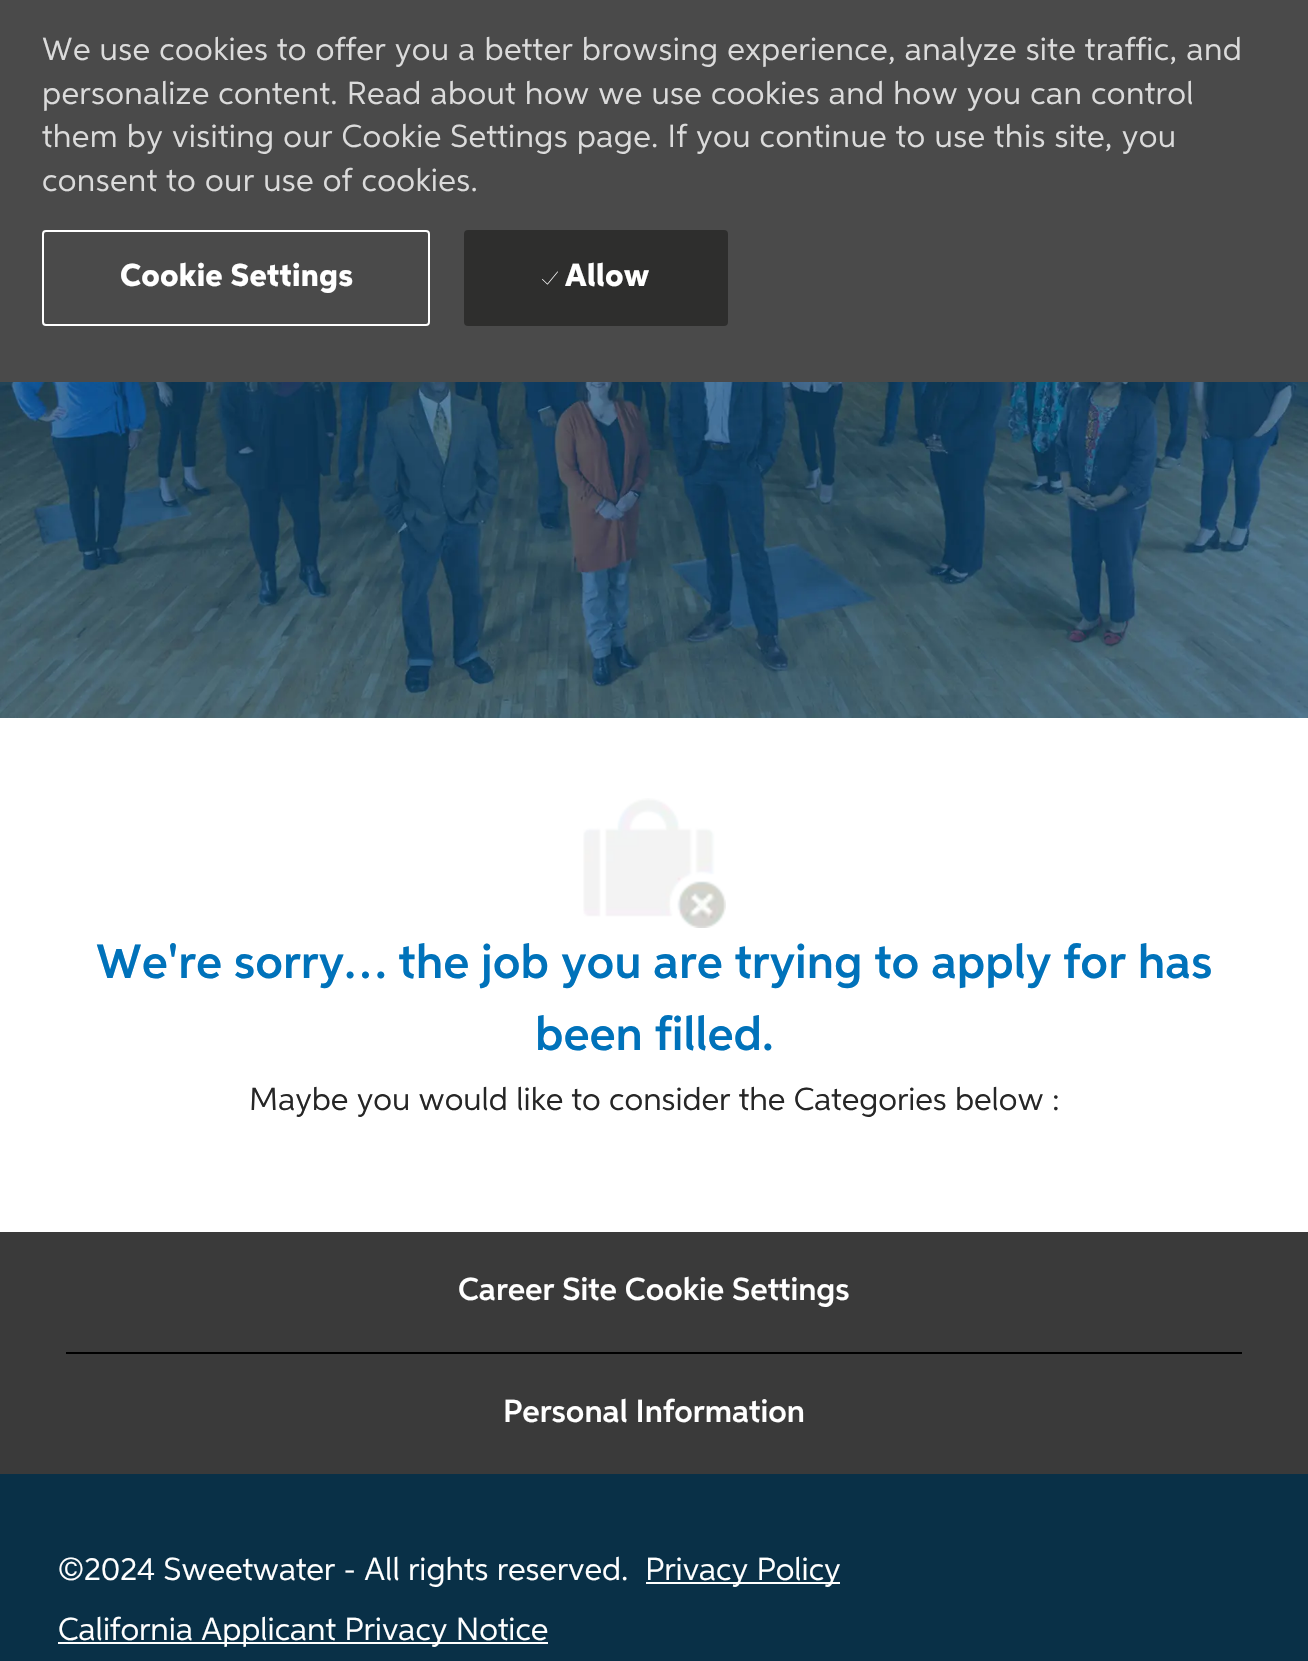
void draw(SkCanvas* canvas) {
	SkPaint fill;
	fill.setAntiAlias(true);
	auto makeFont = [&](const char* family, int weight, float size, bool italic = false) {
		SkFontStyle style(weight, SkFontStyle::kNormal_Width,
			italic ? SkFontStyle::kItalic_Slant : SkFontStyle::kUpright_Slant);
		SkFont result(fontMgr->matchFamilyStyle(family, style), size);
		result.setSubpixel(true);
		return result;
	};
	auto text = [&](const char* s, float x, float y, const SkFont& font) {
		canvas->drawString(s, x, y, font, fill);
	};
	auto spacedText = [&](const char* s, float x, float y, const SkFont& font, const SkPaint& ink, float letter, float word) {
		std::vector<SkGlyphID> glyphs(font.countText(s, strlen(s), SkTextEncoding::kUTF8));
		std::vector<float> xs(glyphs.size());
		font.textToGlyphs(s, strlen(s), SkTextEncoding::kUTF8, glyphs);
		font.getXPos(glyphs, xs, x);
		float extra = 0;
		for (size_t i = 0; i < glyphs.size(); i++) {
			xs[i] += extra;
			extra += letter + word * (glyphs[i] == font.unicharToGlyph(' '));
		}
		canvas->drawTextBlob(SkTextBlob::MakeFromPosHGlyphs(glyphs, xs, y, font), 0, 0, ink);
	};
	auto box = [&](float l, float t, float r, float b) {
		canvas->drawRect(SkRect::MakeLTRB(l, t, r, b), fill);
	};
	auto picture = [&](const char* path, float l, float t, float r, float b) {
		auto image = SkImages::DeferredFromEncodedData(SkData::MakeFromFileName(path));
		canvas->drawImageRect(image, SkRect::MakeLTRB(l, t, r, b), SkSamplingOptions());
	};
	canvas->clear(0xFFFFFFFF);
	fill.setColor(0xFF4A4A4A);
	box(0, 0, 1308, 382);
	fill.setStyle(SkPaint::kStroke_Style);
	fill.setStrokeWidth(2);
	fill.setColor(0xFFFFFFFF);
	canvas->drawRoundRect(SkRect::MakeLTRB(43, 231, 429, 325), 3, 3, fill);
	fill.setStyle(SkPaint::kFill_Style);
	fill.setColor(0xFF2E2E2D);
	canvas->drawRoundRect(SkRect::MakeLTRB(465, 231, 727, 325), 3, 3, fill);
	fill.setStyle(SkPaint::kStroke_Style);
	canvas->drawRoundRect(SkRect::MakeLTRB(465, 231, 727, 325), 3, 3, fill);
	picture("image0.png", 542, 271, 558, 285);
	picture("image1.png", 0, 382, 1308, 718);
	picture("image2.png", 583, 798, 726, 928);
	fill.setStyle(SkPaint::kFill_Style);
	fill.setColor(0xFF3A3A3A);
	box(0, 1232, 1308, 1474);
	fill.setColor(0xFF000000);
	box(66, 1352, 1242, 1354);
	fill.setColor(0xFF093047);
	box(0, 1474, 1308, 1661);
	fill.setColor(0xFFFFFFFF);
	box(646, 1582, 840, 1584);
	box(58, 1642, 548, 1644);
	auto font1 = makeFont("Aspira", 400, 32);
	fill.setColor(0xFFDBDBDB);
	spacedText("We use cookies to offer you a better browsing experience, analyze site traffic, and", 42, 60, font1, fill, 0.4f, 0);
	spacedText("personalize content. Read about how we use cookies and how you can control", 42, 104, font1, fill, 0.4f, 0);
	spacedText("them by visiting our Cookie Settings page. If you continue to use this site, you", 42, 147, font1, fill, 0.4f, 0);
	spacedText("consent to our use of cookies.", 42, 191, font1, fill, 0.4f, 0);
	auto font2 = makeFont("Aspira", 900, 32);
	fill.setColor(0xFFFFFFFF);
	spacedText("Cookie Settings", 120, 286, font2, fill, 0.25f, 0);
	spacedText("Allow", 565, 286, font2, fill, 0.25f, 0);
	auto font3 = makeFont("Aspira", 600, 48);
	fill.setColor(0xFF0072BA);
	text("We're sorry… the job you are trying to apply for has", 96, 978, font3);
	text("been filled.", 535, 1050, font3);
	fill.setColor(0xFF262626);
	text("Maybe you would like to consider the Categories below :", 249, 1110, font1);
	auto font4 = makeFont("Aspira", 600, 32);
	fill.setColor(0xFFFFFFFF);
	text("Career Site Cookie Settings", 458, 1300, font4);
	text("Personal Information", 503, 1422, font4);
	text("©2024 Sweetwater - All rights reserved.", 58, 1580, font1);
	text("Privacy Policy", 645, 1580, font1);
	text("California Applicant Privacy Notice", 58, 1640, font1);
}
